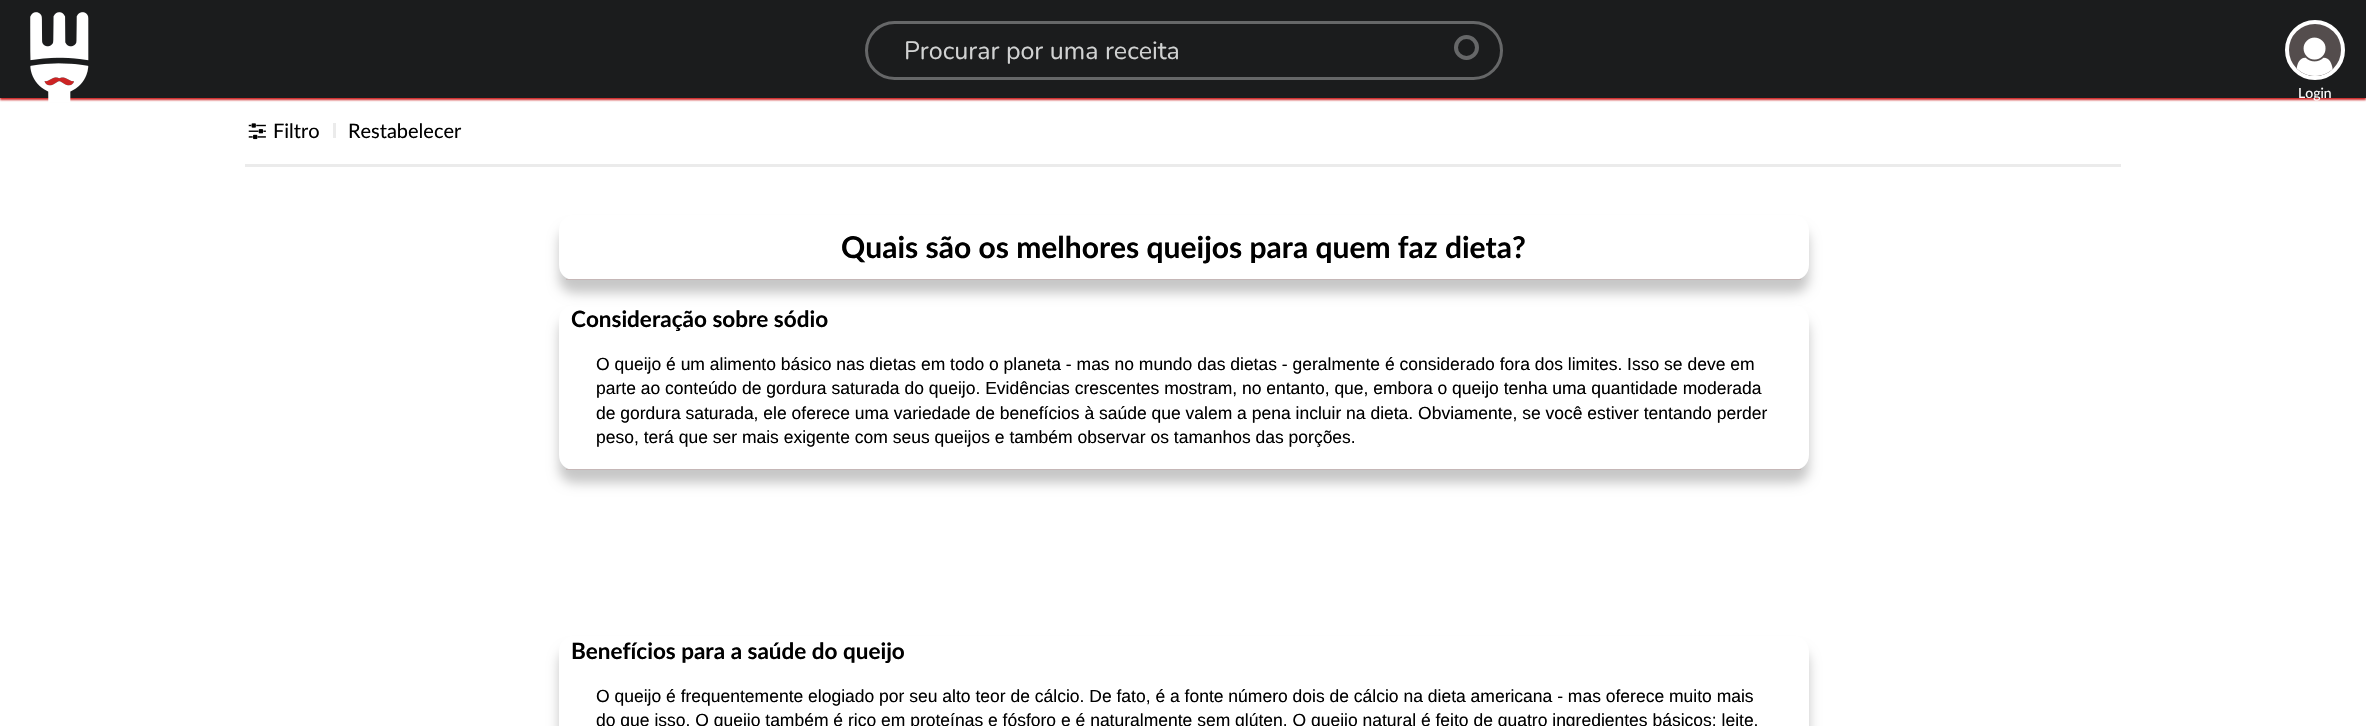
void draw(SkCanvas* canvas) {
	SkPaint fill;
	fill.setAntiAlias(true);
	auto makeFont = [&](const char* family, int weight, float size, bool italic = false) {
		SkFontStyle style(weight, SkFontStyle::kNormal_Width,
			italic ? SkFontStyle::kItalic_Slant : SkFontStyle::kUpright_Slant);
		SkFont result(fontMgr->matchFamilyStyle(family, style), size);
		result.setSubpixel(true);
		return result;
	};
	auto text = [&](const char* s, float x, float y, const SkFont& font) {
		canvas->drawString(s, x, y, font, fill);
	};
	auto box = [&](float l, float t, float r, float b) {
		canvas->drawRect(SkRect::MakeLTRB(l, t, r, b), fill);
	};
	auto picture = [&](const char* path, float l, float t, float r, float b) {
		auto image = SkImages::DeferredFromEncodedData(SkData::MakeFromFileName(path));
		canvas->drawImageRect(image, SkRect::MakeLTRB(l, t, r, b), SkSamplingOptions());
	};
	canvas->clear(0xFFFFFFFF);
	fill.setColor(0xFFCC2424);
	fill.setMaskFilter(SkMaskFilter::MakeBlur(kNormal_SkBlurStyle, 1));
	canvas->drawRect(SkRect::MakeLTRB(0, 3, 2366, 100), fill);
	fill.setMaskFilter(nullptr);
	fill.setColor(0xFF1B1C1D);
	box(0, 0, 2366, 98);
	picture("image0.png", 30, 12, 89, 102);
	fill.setStyle(SkPaint::kStroke_Style);
	fill.setStrokeWidth(4);
	fill.setColor(0xFF666768);
	canvas->drawCircle(1466.5f, 47.5f, 10.5f, fill);
	fill.setStrokeWidth(3);
	canvas->drawRoundRect(SkRect::MakeLTRB(866.5f, 22.5f, 1501.5f, 78.5f), 28, 28, fill);
	fill.setStyle(SkPaint::kFill_Style);
	fill.setColor(0xFF544D4D);
	canvas->drawCircle(2315, 50, 28, fill);
	fill.setStyle(SkPaint::kStroke_Style);
	fill.setStrokeWidth(4);
	fill.setColor(0xFFFFFFFF);
	canvas->drawCircle(2315, 50, 28, fill);
	picture("image1.png", 2296, 37, 2333, 76);
	fill.setStyle(SkPaint::kFill_Style);
	fill.setColor(0xFFEBEBEB);
	box(245, 164, 2121, 167);
	picture("image2.png", 248, 123, 266, 140);
	box(333, 123, 336, 138);
	canvas->save();
	canvas->clipPath(SkPathBuilder(SkPathFillType::kEvenOdd).moveTo(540, 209).lineTo(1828, 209).lineTo(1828, 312).lineTo(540, 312).close().moveTo(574, 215).lineTo(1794, 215).cubicTo(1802.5f, 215, 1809, 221.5f, 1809, 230).lineTo(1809, 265).cubicTo(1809, 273.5f, 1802.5f, 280, 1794, 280).lineTo(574, 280).cubicTo(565.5f, 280, 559, 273.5f, 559, 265).lineTo(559, 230).cubicTo(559, 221.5f, 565.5f, 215, 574, 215).close().detach(), true);
	fill.setColor(0x38000000);
	fill.setMaskFilter(SkMaskFilter::MakeBlur(kNormal_SkBlurStyle, 6));
	canvas->drawRoundRect(SkRect::MakeLTRB(559, 228, 1809, 293), 15, 15, fill);
	fill.setMaskFilter(nullptr);
	canvas->restore();
	fill.setColor(0xFFC5B7B7);
	box(566, 279, 1801, 280);
	canvas->save();
	canvas->clipPath(SkPathBuilder(SkPathFillType::kEvenOdd).moveTo(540, 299).lineTo(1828, 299).lineTo(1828, 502).lineTo(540, 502).close().moveTo(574, 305).lineTo(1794, 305).cubicTo(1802.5f, 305, 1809, 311.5f, 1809, 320).lineTo(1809, 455).cubicTo(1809, 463.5f, 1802.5f, 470, 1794, 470).lineTo(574, 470).cubicTo(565.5f, 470, 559, 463.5f, 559, 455).lineTo(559, 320).cubicTo(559, 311.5f, 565.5f, 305, 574, 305).close().detach(), true);
	fill.setColor(0x38000000);
	fill.setMaskFilter(SkMaskFilter::MakeBlur(kNormal_SkBlurStyle, 6));
	canvas->drawRoundRect(SkRect::MakeLTRB(559, 318, 1809, 483), 15, 15, fill);
	fill.setMaskFilter(nullptr);
	canvas->restore();
	fill.setColor(0xFFC5B7B7);
	box(566, 469, 1801, 470);
	canvas->save();
	canvas->clipPath(SkPathBuilder(SkPathFillType::kEvenOdd).moveTo(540, 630).lineTo(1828, 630).lineTo(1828, 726).lineTo(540, 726).close().moveTo(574, 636).lineTo(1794, 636).cubicTo(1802.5f, 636, 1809, 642.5f, 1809, 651).lineTo(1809, 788).cubicTo(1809, 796.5f, 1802.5f, 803, 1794, 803).lineTo(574, 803).cubicTo(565.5f, 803, 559, 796.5f, 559, 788).lineTo(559, 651).cubicTo(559, 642.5f, 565.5f, 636, 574, 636).close().detach(), true);
	fill.setColor(0x38000000);
	fill.setMaskFilter(SkMaskFilter::MakeBlur(kNormal_SkBlurStyle, 6));
	canvas->drawRoundRect(SkRect::MakeLTRB(559, 649, 1809, 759), 15, 15, fill);
	fill.setMaskFilter(nullptr);
	canvas->restore();
	auto font1 = makeFont("Nunito", 400, 25);
	fill.setColor(0xFFD1D2D2);
	text("Procurar por uma receita", 904, 59, font1);
	auto font2 = makeFont("Lato", 400, 14);
	fill.setColor(0xFFFFFFFF);
	text("Login", 2298, 98, font2);
	auto font3 = makeFont("Lato", 400, 20);
	fill.setColor(0xFF000000);
	text("Filtro", 273, 138, font3);
	text("Restabelecer", 348, 138, font3);
	auto font4 = makeFont("Lato", 700, 30);
	text("Quais são os melhores queijos para quem faz dieta?", 841, 258, font4);
	auto font5 = makeFont("Lato", 700, 22.5f);
	text("Consideração sobre sódio", 571, 327, font5);
	auto font6 = makeFont("Liberation Sans", 400, 17.5f);
	text("O queijo é um alimento básico nas dietas em todo o planeta - mas no mundo das dietas - geralmente é considerado fora dos limites. Isso se deve em", 596, 370, font6);
	text("parte ao conteúdo de gordura saturada do queijo. Evidências crescentes mostram, no entanto, que, embora o queijo tenha uma quantidade moderada", 596, 394, font6);
	text("de gordura saturada, ele oferece uma variedade de benefícios à saúde que valem a pena incluir na dieta. Obviamente, se você estiver tentando perder", 596, 419, font6);
	text("peso, terá que ser mais exigente com seus queijos e também observar os tamanhos das porções.", 596, 443, font6);
	text("Benefícios para a saúde do queijo", 571, 659, font5);
	text("O queijo é frequentemente elogiado por seu alto teor de cálcio. De fato, é a fonte número dois de cálcio na dieta americana - mas oferece muito mais", 596, 702, font6);
	text("do que isso. O queijo também é rico em proteínas e fósforo e é naturalmente sem glúten. O queijo natural é feito de quatro ingredientes básicos: leite,", 596, 726, font6);
}
